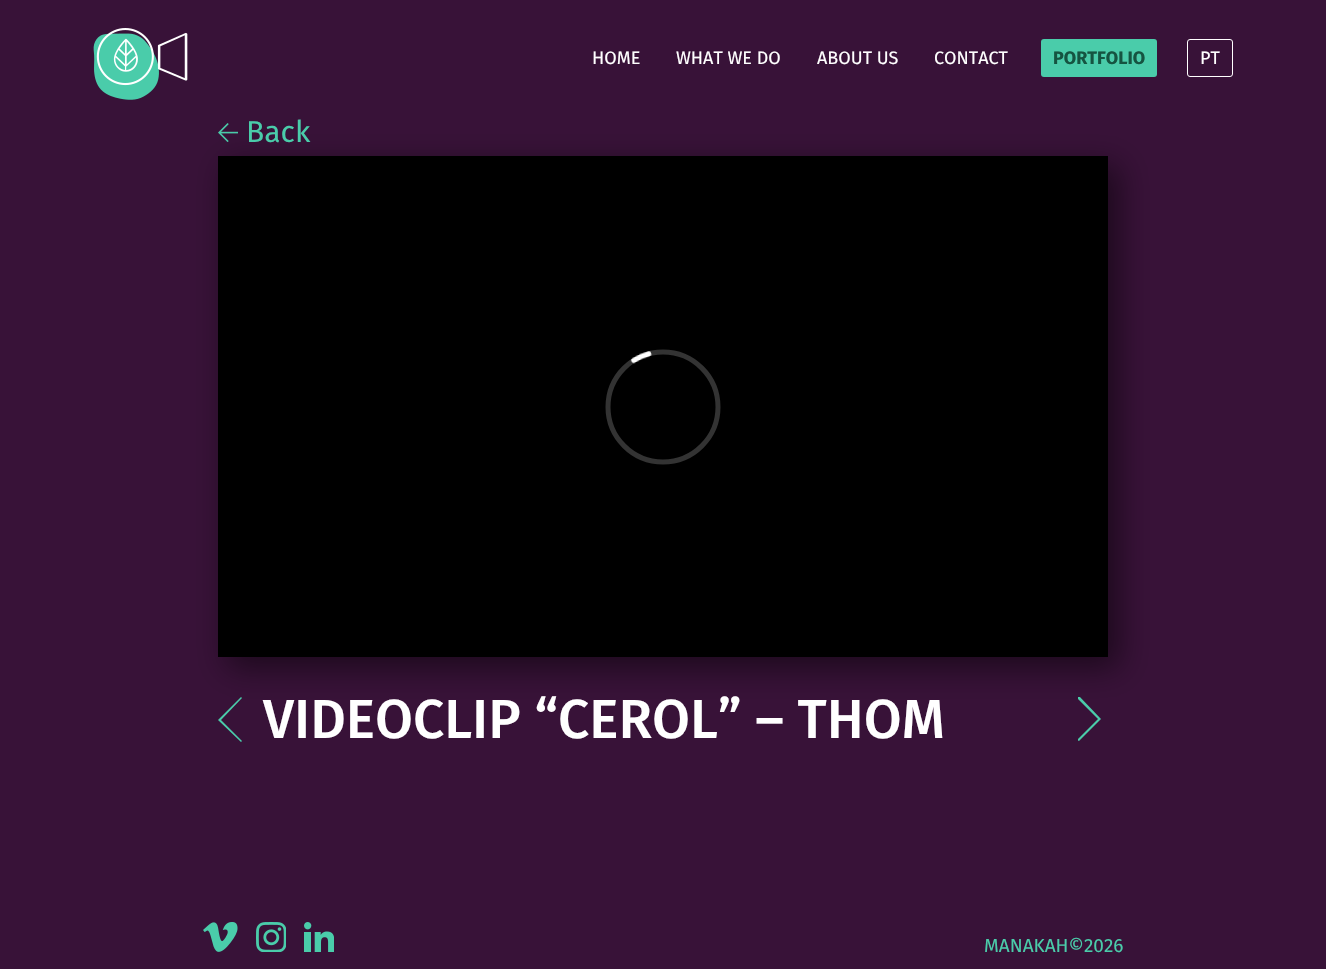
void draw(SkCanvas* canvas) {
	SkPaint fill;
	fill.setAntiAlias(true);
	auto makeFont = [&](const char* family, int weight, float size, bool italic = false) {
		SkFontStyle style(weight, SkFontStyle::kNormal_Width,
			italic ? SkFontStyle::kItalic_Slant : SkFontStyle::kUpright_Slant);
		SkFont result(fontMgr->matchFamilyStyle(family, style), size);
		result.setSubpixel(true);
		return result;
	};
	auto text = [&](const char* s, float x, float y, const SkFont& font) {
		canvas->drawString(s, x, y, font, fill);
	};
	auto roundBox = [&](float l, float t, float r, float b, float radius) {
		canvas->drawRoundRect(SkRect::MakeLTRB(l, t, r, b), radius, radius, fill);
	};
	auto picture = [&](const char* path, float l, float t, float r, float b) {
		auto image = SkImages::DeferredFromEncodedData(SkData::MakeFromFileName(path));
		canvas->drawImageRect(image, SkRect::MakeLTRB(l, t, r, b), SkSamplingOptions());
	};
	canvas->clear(0xFF381238);
	picture("image0.png", 93, 28, 188, 100);
	fill.setColor(0xFF4ACCAA);
	roundBox(1041, 39, 1157, 77, 3);
	fill.setStyle(SkPaint::kStroke_Style);
	fill.setStrokeWidth(1);
	fill.setColor(0xFFFFFFFF);
	canvas->drawRoundRect(SkRect::MakeLTRB(1187.5f, 39.5f, 1232.5f, 76.5f), 2.5f, 2.5f, fill);
	picture("image2.png", 218, 123, 238, 142);
	fill.setStyle(SkPaint::kFill_Style);
	fill.setColor(0xFF4ACCAA);
	canvas->drawPath(SkPathBuilder().moveTo(241, 742).lineTo(218, 720).lineTo(241, 697).lineTo(242, 698).lineTo(221, 720).lineTo(242, 741).close().detach(), fill);
	fill.setColor(0x80000000);
	fill.setMaskFilter(SkMaskFilter::MakeBlur(kNormal_SkBlurStyle, 15));
	canvas->drawRect(SkRect::MakeLTRB(227, 165, 1119, 668), fill);
	fill.setMaskFilter(nullptr);
	picture("image1.png", 218, 156, 1108, 657);
	canvas->save();
	canvas->clipRect(SkRect::MakeLTRB(1078, 697, 1102, 742));
	fill.setColor(0xFF4ACCAA);
	canvas->drawPath(SkPathBuilder().moveTo(1079, 696).lineTo(1101, 719).lineTo(1079, 741).lineTo(1077, 740).lineTo(1098, 719).lineTo(1077, 698).close().detach(), fill);
	canvas->restore();
	picture("image3.png", 203, 922, 238, 952);
	picture("image4.png", 256, 922, 286, 952);
	picture("image5.png", 304, 922, 334, 952);
	auto font1 = makeFont("Fira Sans", 400, 18);
	fill.setColor(0xFFFFFFFF);
	text("HOME", 592, 64, font1);
	text("WHAT WE DO", 676, 64, font1);
	text("ABOUT US", 817, 64, font1);
	text("CONTACT", 934, 64, font1);
	auto font2 = makeFont("Fira Sans", 700, 18);
	fill.setColor(0xFF155441);
	text("PORTFOLIO", 1053, 64, font2);
	fill.setColor(0xFFFFFFFF);
	text("PT", 1200, 64, font1);
	auto font3 = makeFont("Fira Sans", 400, 30);
	fill.setColor(0xFF4ACCAA);
	text("Back", 246, 142, font3);
	auto font4 = makeFont("Fira Sans", 500, 55);
	fill.setColor(0xFFFFFFFF);
	text("VIDEOCLIP “CEROL” – THOM", 263, 738, font4);
	auto font5 = makeFont("Fira Sans", 400, 19);
	fill.setColor(0xFF4ACCAA);
	text("MANAKAH©2026", 984, 952, font5);
}
